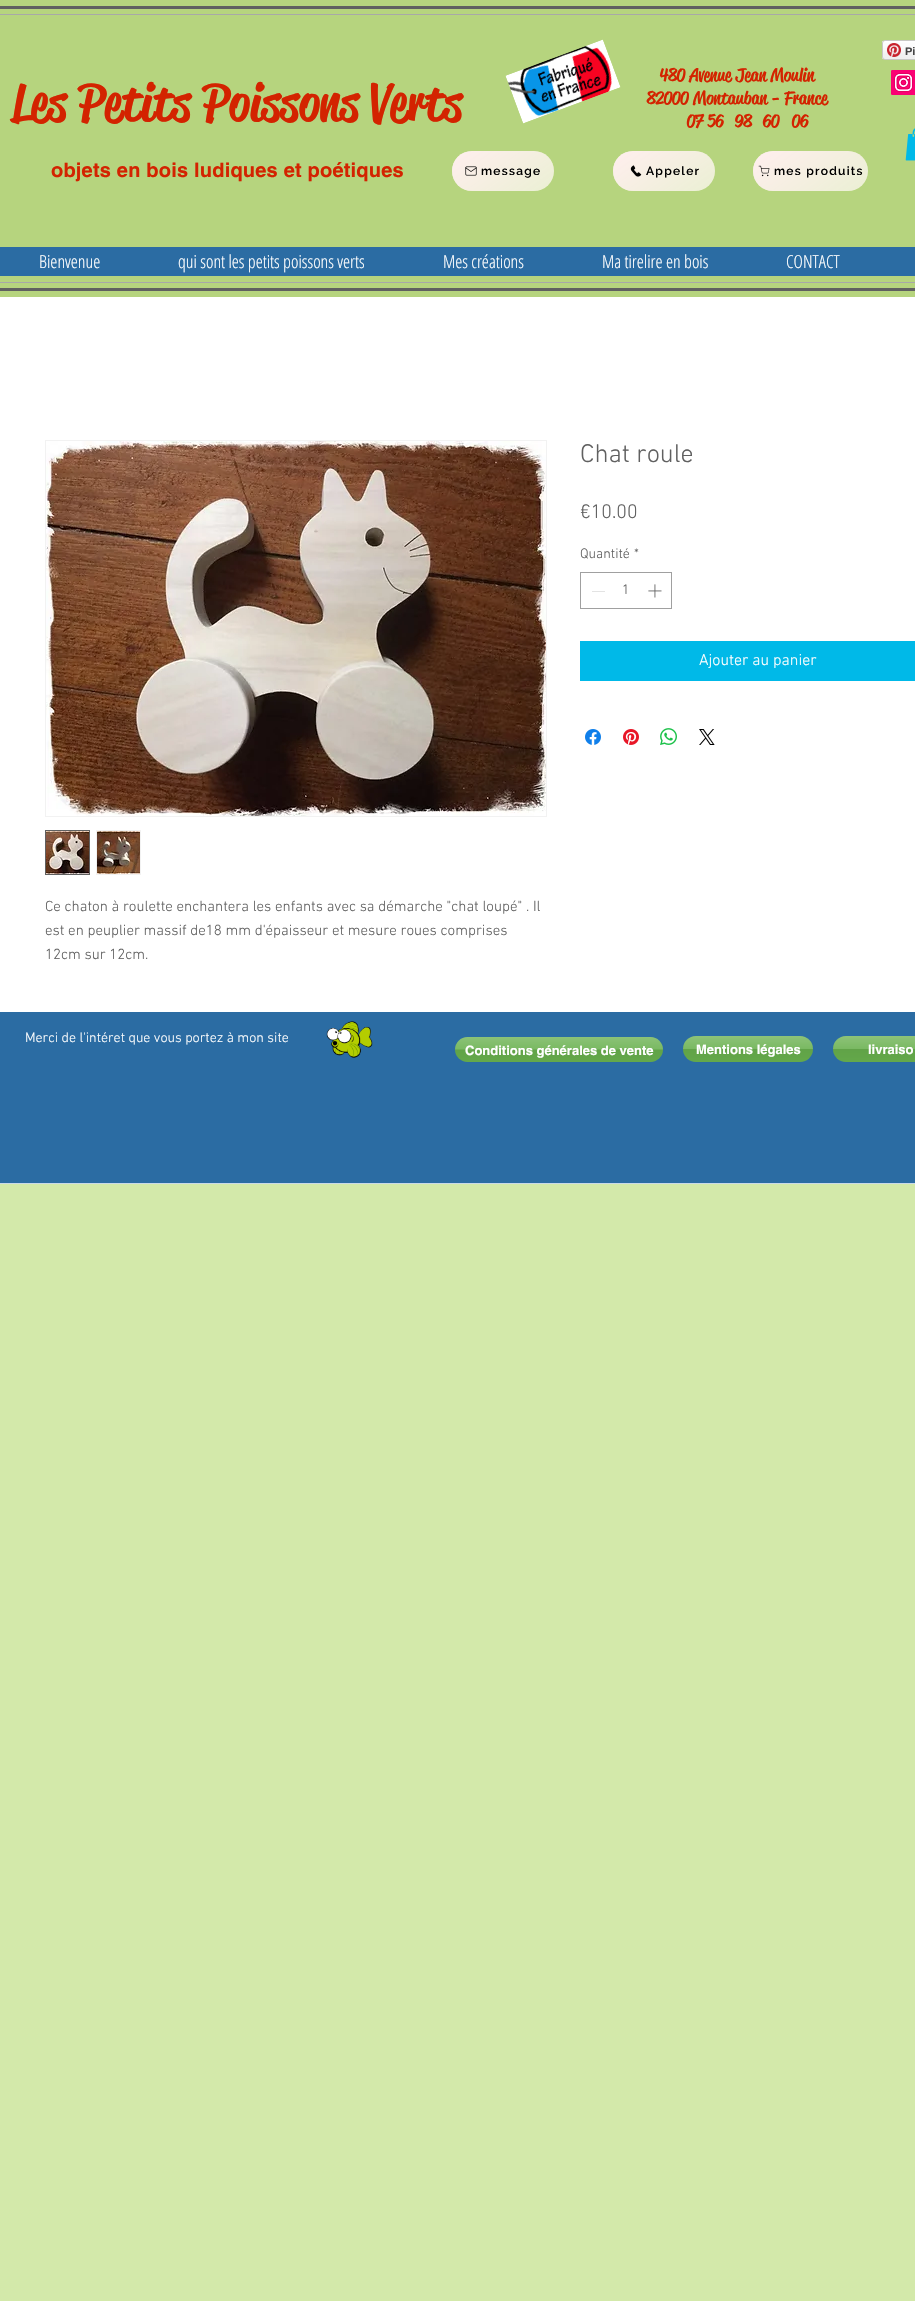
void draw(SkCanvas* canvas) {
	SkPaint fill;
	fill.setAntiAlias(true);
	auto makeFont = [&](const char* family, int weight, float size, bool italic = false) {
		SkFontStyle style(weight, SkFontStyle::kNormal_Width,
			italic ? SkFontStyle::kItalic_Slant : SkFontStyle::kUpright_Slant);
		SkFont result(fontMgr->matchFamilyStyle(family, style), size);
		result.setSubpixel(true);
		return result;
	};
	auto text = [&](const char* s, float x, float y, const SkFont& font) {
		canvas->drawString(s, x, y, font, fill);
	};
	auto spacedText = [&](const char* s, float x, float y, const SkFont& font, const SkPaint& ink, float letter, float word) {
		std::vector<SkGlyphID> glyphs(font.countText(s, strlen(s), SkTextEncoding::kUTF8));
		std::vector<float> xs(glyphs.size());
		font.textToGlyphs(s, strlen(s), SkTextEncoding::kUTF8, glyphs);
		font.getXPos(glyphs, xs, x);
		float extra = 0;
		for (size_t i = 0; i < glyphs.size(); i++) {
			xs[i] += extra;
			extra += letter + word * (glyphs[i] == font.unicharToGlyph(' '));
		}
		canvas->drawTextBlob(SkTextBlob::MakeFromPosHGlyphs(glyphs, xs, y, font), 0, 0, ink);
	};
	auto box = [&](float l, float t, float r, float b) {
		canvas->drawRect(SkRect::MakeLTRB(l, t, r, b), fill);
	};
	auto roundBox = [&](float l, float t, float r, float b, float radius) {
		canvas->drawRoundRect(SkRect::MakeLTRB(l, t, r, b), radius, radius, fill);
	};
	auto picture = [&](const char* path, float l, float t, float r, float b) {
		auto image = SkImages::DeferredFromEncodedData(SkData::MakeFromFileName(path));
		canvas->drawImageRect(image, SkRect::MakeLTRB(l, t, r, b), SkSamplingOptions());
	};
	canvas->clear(0xFFD3E9AA);
	fill.setColor(0xFFB6D47E);
	box(0, 0, 915, 297);
	fill.setColor(0xFF606060);
	box(0, 6, 915, 9);
	box(0, 288, 915, 291);
	fill.setColor(0xFFA8A8A8);
	box(0, 14, 915, 15);
	box(0, 282, 915, 283);
	picture("image0.png", 505, 39, 621, 124);
	picture("image2.png", 882, 41, 915, 59);
	fill.setStyle(SkPaint::kStroke_Style);
	fill.setStrokeWidth(1);
	fill.setColor(0xFFC9C9C5);
	canvas->drawRoundRect(SkRect::MakeLTRB(882.5f, 40.5f, 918.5f, 59.5f), 2.5f, 2.5f, fill);
	picture("image1.png", 887, 43, 901, 57);
	picture("image3.png", 891, 70, 915, 95);
	picture("image4.png", 905, 128, 915, 161);
	fill.setStyle(SkPaint::kFill_Style);
	fill.setColor(0xFFEBF0D4);
	roundBox(452, 151, 554, 191, 20);
	{
		const SkColor colors[] = {0xFFFFEEEE, 0x00FFEEEE};
		const float stops[] = {0, 1};
		const SkPoint ends[] = {{477, 134}, {529, 208}};
		fill.setShader(SkGradientShader::MakeLinear(ends, colors, stops, 2, SkTileMode::kClamp));
		fill.setAlpha(255);
	}
	roundBox(452, 151, 554, 191, 20);
	picture("image5.png", 465, 166, 477, 176);
	fill.setShader(nullptr);
	fill.setColor(0xFFEBF0D4);
	roundBox(613, 151, 715, 191, 20);
	{
		const SkColor colors[] = {0xFFFFEEEE, 0x00FFEEEE};
		const float stops[] = {0, 1};
		const SkPoint ends[] = {{638, 134}, {690, 208}};
		fill.setShader(SkGradientShader::MakeLinear(ends, colors, stops, 2, SkTileMode::kClamp));
		fill.setAlpha(255);
	}
	roundBox(613, 151, 715, 191, 20);
	picture("image6.png", 630, 165, 642, 177);
	fill.setShader(nullptr);
	fill.setColor(0xFFEBF0D4);
	roundBox(753, 151, 868, 191, 20);
	{
		const SkColor colors[] = {0xFFFFEEEE, 0x00FFEEEE};
		const float stops[] = {0, 1};
		const SkPoint ends[] = {{782, 131}, {839, 211}};
		fill.setShader(SkGradientShader::MakeLinear(ends, colors, stops, 2, SkTileMode::kClamp));
		fill.setAlpha(255);
	}
	roundBox(753, 151, 868, 191, 20);
	picture("image7.png", 758, 165, 770, 177);
	fill.setShader(nullptr);
	fill.setColor(0xFF2B6CA3);
	box(0, 247, 915, 276);
	fill.setColor(0xFFFFFFFF);
	box(0, 297, 915, 1012);
	fill.setStyle(SkPaint::kStroke_Style);
	fill.setColor(0xFFA0A0A0);
	canvas->drawRect(SkRect::MakeLTRB(580.5f, 572.5f, 671.5f, 608.5f), fill);
	fill.setStyle(SkPaint::kFill_Style);
	fill.setColor(0xFFE3E3E3);
	box(592, 591, 605, 592);
	picture("image8.png", 648, 584, 662, 598);
	fill.setColor(0xFF00B9E8);
	box(580, 641, 915, 681);
	picture("image9.png", 585, 729, 601, 745);
	picture("image10.png", 623, 729, 639, 745);
	picture("image11.png", 660, 728, 677, 745);
	picture("image12.png", 699, 729, 715, 745);
	fill.setStyle(SkPaint::kStroke_Style);
	fill.setColor(0xFFF2F2F2);
	canvas->drawRect(SkRect::MakeLTRB(45.5f, 440.5f, 546.5f, 816.5f), fill);
	picture("image13.png", 46, 441, 546, 816);
	fill.setColor(0xFF606060);
	canvas->drawRect(SkRect::MakeLTRB(45.5f, 830.5f, 89.5f, 874.5f), fill);
	picture("image14.png", 46, 831, 89, 874);
	fill.setStyle(SkPaint::kFill_Style);
	fill.setColor(0xFFF2F2F2);
	box(96, 830, 141, 875);
	picture("image15.png", 97, 831, 140, 874);
	fill.setColor(0xFF2B6CA3);
	box(0, 1012, 915, 1183);
	fill.setColor(0xFFCADAE8);
	box(0, 1183, 915, 1184);
	picture("image16.png", 326, 1021, 373, 1058);
	fill.setColor(0xFF68B04D);
	roundBox(455, 1037, 663, 1062, 12.5f);
	picture("image17.png", 455, 1037, 663, 1062);
	roundBox(683, 1036, 813, 1062, 13);
	picture("image18.png", 683, 1036, 813, 1062);
	roundBox(833, 1036, 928, 1062, 13);
	picture("image19.png", 833, 1036, 915, 1062);
	auto font1 = makeFont("Liberation Sans", 700, 11);
	fill.setColor(0xFF444444);
	text("Pi", 905, 55, font1);
	auto font2 = makeFont("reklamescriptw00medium", 500, 51);
	fill.setColor(0xFFD32300);
	text("Les Petits Poissons Verts", 11, 120, font2);
	auto font3 = makeFont("reklamescriptw00medium", 500, 18);
	text("480 Avenue Jean Moulin", 660, 81, font3);
	text("82000 Montauban - France", 647, 104, font3);
	text("07 56", 687, 127, font3);
	text("98", 735, 127, font3);
	text("60   06", 763, 127, font3);
	auto font4 = makeFont("helvetica", 700, 20);
	spacedText("objets en bois ludiques et poétiques", 51, 177, font4, fill, 0.2f, 0);
	auto font5 = makeFont("Raleway", 600, 12);
	fill.setColor(0xFF000000);
	spacedText("message", 481, 175, font5, fill, 1.25f, 0);
	spacedText("Appeler", 646, 175, font5, fill, 1.25f, 0);
	spacedText("mes produits", 774, 175, font5, fill, 1.25f, 0);
	auto font6 = makeFont("Open Sans Condensed", 300, 18);
	fill.setColor(0xFFFFFFFF);
	text("Bienvenue", 39, 268, font6);
	text("qui sont les petits poissons verts", 178, 268, font6);
	text("Mes créations", 443, 268, font6);
	text("Ma tirelire en bois", 602, 268, font6);
	text("CONTACT", 786, 268, font6);
	auto font7 = makeFont("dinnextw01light", 300, 26);
	fill.setColor(0xFF606060);
	text("Chat roule", 580, 462, font7);
	auto font8 = makeFont("dinnextw01light", 300, 20);
	text("€10.00", 580, 518, font8);
	auto font9 = makeFont("dinnextw01light", 300, 14);
	text("Quantité", 580, 558, font9);
	text("*", 634, 558, font9);
	text("1", 622, 594, font9);
	auto font10 = makeFont("dinnextw01light", 300, 16);
	fill.setColor(0xFFFFFFFF);
	text("Ajouter au panier", 699, 665, font10);
	auto font11 = makeFont("dinnextw01light", 300, 15);
	fill.setColor(0xFF606060);
	text("Ce chaton à roulette enchantera les enfants avec sa démarche \"chat loupé\" . Il", 45, 911, font11);
	text("est en peuplier massif de18 mm d'épaisseur et mesure roues comprises", 45, 935, font11);
	text("12cm sur 12cm.", 45, 959, font11);
	fill.setColor(0xFFFFFFFF);
	text("Merci de l'intéret que vous portez à mon site", 25, 1042, font9);
	auto font12 = makeFont("helvetica", 700, 13);
	text("Conditions générales de vente", 465, 1055, font12);
	text("Mentions légales", 696, 1054, font12);
	text("livraiso", 868, 1054, font12);
}
